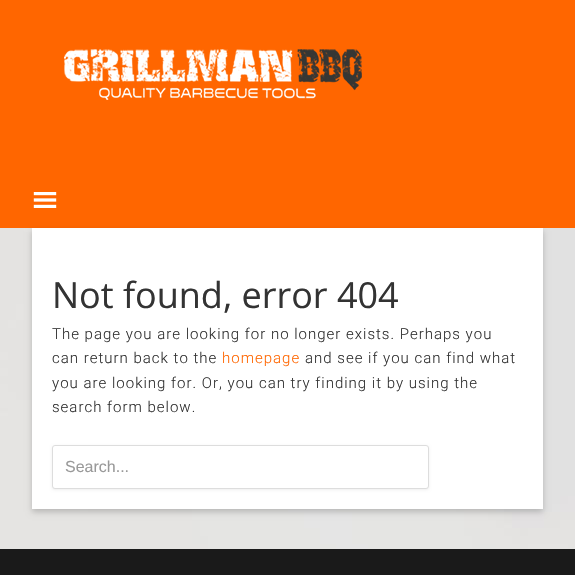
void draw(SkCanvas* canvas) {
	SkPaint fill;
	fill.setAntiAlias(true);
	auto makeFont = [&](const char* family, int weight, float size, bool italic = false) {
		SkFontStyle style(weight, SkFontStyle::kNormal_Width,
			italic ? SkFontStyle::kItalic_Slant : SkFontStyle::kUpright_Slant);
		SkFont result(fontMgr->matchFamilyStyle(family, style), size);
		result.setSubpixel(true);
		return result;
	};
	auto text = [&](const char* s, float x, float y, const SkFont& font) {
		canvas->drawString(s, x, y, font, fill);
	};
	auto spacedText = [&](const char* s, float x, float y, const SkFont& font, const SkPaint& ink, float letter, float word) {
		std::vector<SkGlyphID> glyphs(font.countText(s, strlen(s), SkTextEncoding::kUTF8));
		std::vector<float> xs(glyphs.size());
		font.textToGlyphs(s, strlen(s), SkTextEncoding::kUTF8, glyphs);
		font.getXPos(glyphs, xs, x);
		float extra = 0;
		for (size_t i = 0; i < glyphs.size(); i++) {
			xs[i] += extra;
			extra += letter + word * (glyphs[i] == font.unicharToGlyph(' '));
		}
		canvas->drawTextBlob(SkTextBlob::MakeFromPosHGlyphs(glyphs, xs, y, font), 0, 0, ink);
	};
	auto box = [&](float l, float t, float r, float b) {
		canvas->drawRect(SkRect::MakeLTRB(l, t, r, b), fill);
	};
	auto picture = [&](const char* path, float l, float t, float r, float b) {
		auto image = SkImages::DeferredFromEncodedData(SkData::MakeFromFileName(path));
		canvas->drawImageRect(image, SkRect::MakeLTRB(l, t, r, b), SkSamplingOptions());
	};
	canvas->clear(0xFFFFFFFF);
	picture("image0.png", 0, 228, 575, 549);
	fill.setColor(0xFFFF6600);
	box(0, 0, 575, 228);
	picture("image1.png", 64, 49, 362, 100);
	picture("image2.png", 33, 192, 57, 208);
	fill.setColor(0x33000000);
	fill.setMaskFilter(SkMaskFilter::MakeBlur(kNormal_SkBlurStyle, 3));
	canvas->drawRect(SkRect::MakeLTRB(32, 231, 543, 512), fill);
	fill.setMaskFilter(nullptr);
	fill.setColor(0xFFFFFFFF);
	box(32, 228, 543, 509);
	fill.setColor(0xFFEEEEEE);
	fill.setMaskFilter(SkMaskFilter::MakeBlur(kNormal_SkBlurStyle, 1.5f));
	canvas->drawRoundRect(SkRect::MakeLTRB(52, 446, 429, 490), 3, 3, fill);
	fill.setMaskFilter(nullptr);
	fill.setColor(0xFFFFFFFF);
	canvas->drawRoundRect(SkRect::MakeLTRB(52.5f, 445.5f, 428.5f, 488.5f), 2.5f, 2.5f, fill);
	fill.setStyle(SkPaint::kStroke_Style);
	fill.setStrokeWidth(1);
	fill.setColor(0xFFDDDDDD);
	canvas->drawRoundRect(SkRect::MakeLTRB(52.5f, 445.5f, 428.5f, 488.5f), 2.5f, 2.5f, fill);
	fill.setStyle(SkPaint::kFill_Style);
	fill.setColor(0xFF1A1A1A);
	box(0, 549, 575, 575);
	auto font1 = makeFont("Open Sans", 400, 36);
	fill.setColor(0xFF333333);
	text("Not found, error 404", 52, 308, font1);
	auto font2 = makeFont("Roboto", 300, 15);
	spacedText("The page you are looking for no longer exists. Perhaps you", 52, 339, font2, fill, 1, 0);
	spacedText("can return back to the", 52, 363, font2, fill, 1, 0);
	fill.setColor(0xFFFF6600);
	spacedText("homepage", 222, 363, font2, fill, 1, 0);
	fill.setColor(0xFF333333);
	spacedText("and see if you can find what", 305, 363, font2, fill, 1, 0);
	spacedText("you are looking for. Or, you can try finding it by using the", 52, 388, font2, fill, 1, 0);
	spacedText("search form below.", 52, 412, font2, fill, 1, 0);
	auto font3 = makeFont("Liberation Sans", 400, 16);
	fill.setColor(0xFF999999);
	text("Search...", 65, 472, font3);
}
